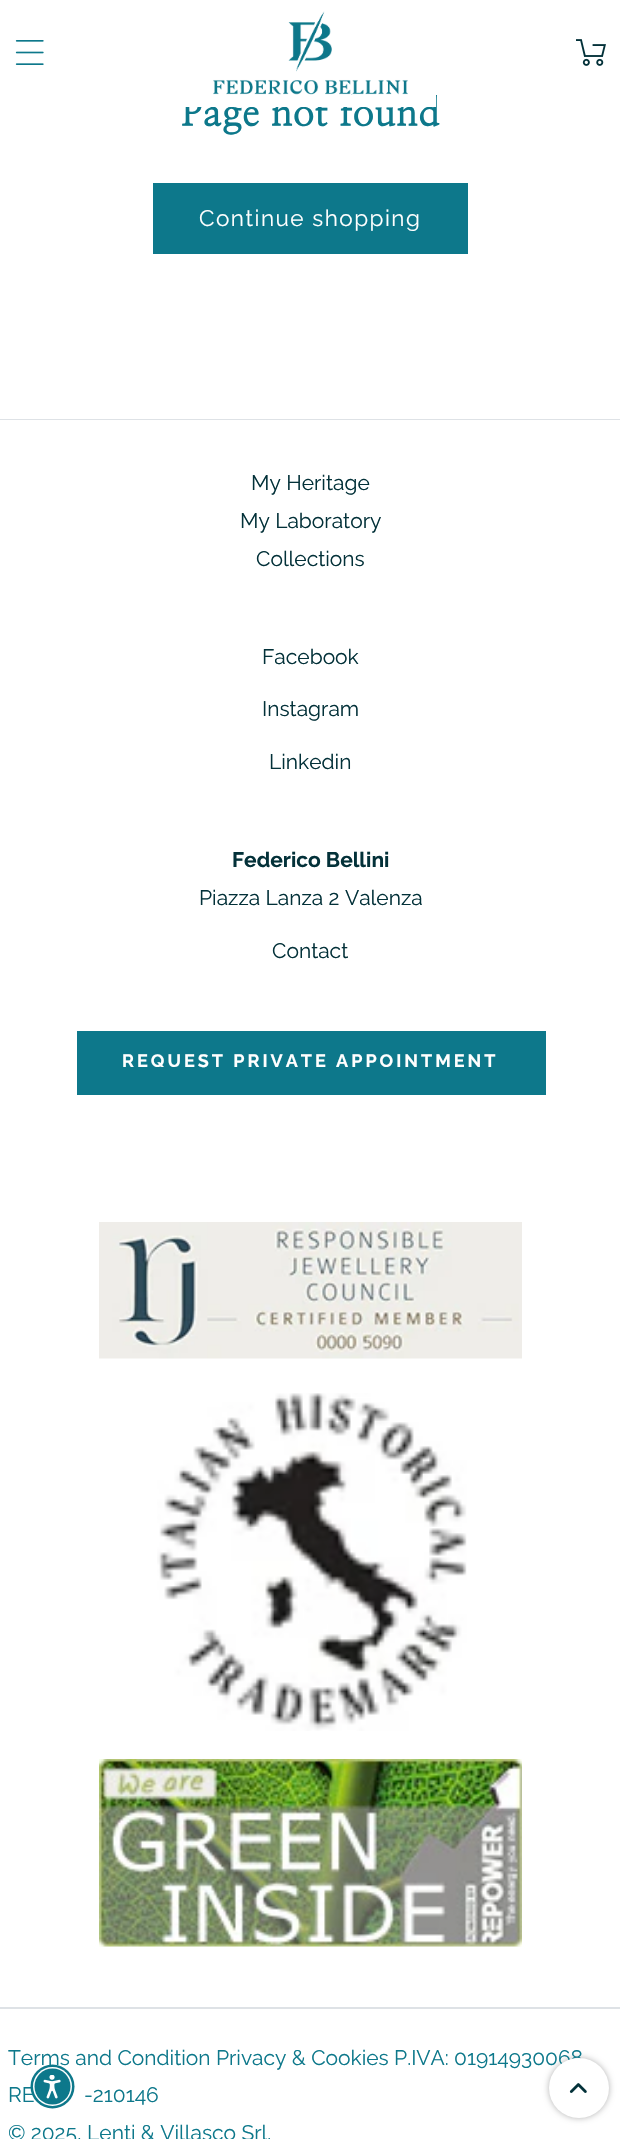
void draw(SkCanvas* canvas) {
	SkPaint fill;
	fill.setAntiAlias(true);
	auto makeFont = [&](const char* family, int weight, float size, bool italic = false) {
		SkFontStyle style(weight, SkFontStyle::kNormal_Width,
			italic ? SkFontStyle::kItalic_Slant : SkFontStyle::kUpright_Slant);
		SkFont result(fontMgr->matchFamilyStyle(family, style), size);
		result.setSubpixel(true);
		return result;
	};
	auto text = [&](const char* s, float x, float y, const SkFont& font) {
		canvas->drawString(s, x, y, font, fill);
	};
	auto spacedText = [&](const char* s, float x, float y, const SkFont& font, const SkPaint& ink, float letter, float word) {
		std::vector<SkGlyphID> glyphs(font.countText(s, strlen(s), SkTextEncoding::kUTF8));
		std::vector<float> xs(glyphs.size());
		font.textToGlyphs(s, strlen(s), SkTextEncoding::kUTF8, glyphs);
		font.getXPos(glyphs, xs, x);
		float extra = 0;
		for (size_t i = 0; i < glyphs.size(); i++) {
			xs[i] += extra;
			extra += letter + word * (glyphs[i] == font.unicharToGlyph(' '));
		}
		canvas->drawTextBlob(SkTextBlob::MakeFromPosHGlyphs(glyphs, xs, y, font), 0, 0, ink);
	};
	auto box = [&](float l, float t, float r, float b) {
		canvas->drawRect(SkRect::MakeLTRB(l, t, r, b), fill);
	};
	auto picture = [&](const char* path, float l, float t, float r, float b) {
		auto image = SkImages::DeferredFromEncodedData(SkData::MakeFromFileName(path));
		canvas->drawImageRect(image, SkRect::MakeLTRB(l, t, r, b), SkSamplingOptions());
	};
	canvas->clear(0xFFFFFFFF);
	picture("image0.png", 15, 40, 44, 65);
	picture("image1.png", 213, 11, 408, 95);
	picture("image2.png", 576, 39, 606, 66);
	fill.setColor(0xFF0D788B);
	box(153, 183, 468, 254);
	fill.setColor(0xFFDEE2E6);
	box(0, 419, 620, 420);
	fill.setColor(0xFF0D788B);
	box(77, 1031, 546, 1095);
	picture("image3.png", 99, 1222, 522, 1359);
	picture("image4.png", 157, 1393, 467, 1731);
	picture("image5.png", 99, 1759, 522, 1947);
	fill.setColor(0xFFDEE2E6);
	box(0, 2007, 620, 2009);
	fill.setColor(0xFF0D788B);
	canvas->drawCircle(52.5f, 2086.5f, 22, fill);
	fill.setColor(0x4D000000);
	fill.setMaskFilter(SkMaskFilter::MakeBlur(kNormal_SkBlurStyle, 3));
	canvas->drawRoundRect(SkRect::MakeLTRB(549, 2058, 609, 2118), 30, 30, fill);
	fill.setMaskFilter(nullptr);
	auto font1 = makeFont("NanumMyeongjo", 700, 37.5f);
	fill.setColor(0xFF0D788B);
	spacedText("Page not found", 181, 126, font1, fill, 0.9f, 0);
	fill.setColor(0xFFFFFFFF);
	box(182, 95, 436, 107);
	auto font2 = makeFont("Raleway", 400, 22.5f);
	spacedText("Continue shopping", 199, 226, font2, fill, 1.5f, 0);
	auto font3 = makeFont("Raleway", 400, 21);
	fill.setColor(0xFF033139);
	text("My Heritage", 251, 490, font3);
	text("My Laboratory", 240, 528, font3);
	text("Collections", 256, 566, font3);
	text("Facebook", 262, 664, font3);
	text("Instagram", 262, 716, font3);
	text("Linkedin", 269, 769, font3);
	auto font4 = makeFont("Raleway", 700, 21);
	text("Federico Bellini", 232, 867, font4);
	text("Piazza Lanza 2 Valenza", 199, 905, font3);
	text("Contact", 272, 958, font3);
	auto font5 = makeFont("Raleway", 700, 18);
	fill.setColor(0xFFFFFFFF);
	spacedText("REQUEST PRIVATE APPOINTMENT", 122, 1067, font5, fill, 3, 0);
	fill.setColor(0xFF0D788B);
	text("Terms and Condition Privacy & Cookies P.IVA: 01914930068", 8, 2065, font3);
	text("RE", 8, 2102, font3);
	text("-210146", 84, 2102, font3);
	text("© 2025, Lenti & Villasco Srl.", 8, 2140, font3);
	fill.setColor(0xFFFFFFFF);
	canvas->drawCircle(52.5f, 2086.5f, 19.5f, fill);
	fill.setColor(0xFF0D788B);
	canvas->drawCircle(52.5f, 2086.5f, 18, fill);
	picture("image6.png", 43, 2075, 61, 2099);
	fill.setColor(0xFFFFFFFF);
	canvas->drawCircle(579, 2088, 30, fill);
	picture("image7.png", 569, 2083, 587, 2093);
}
